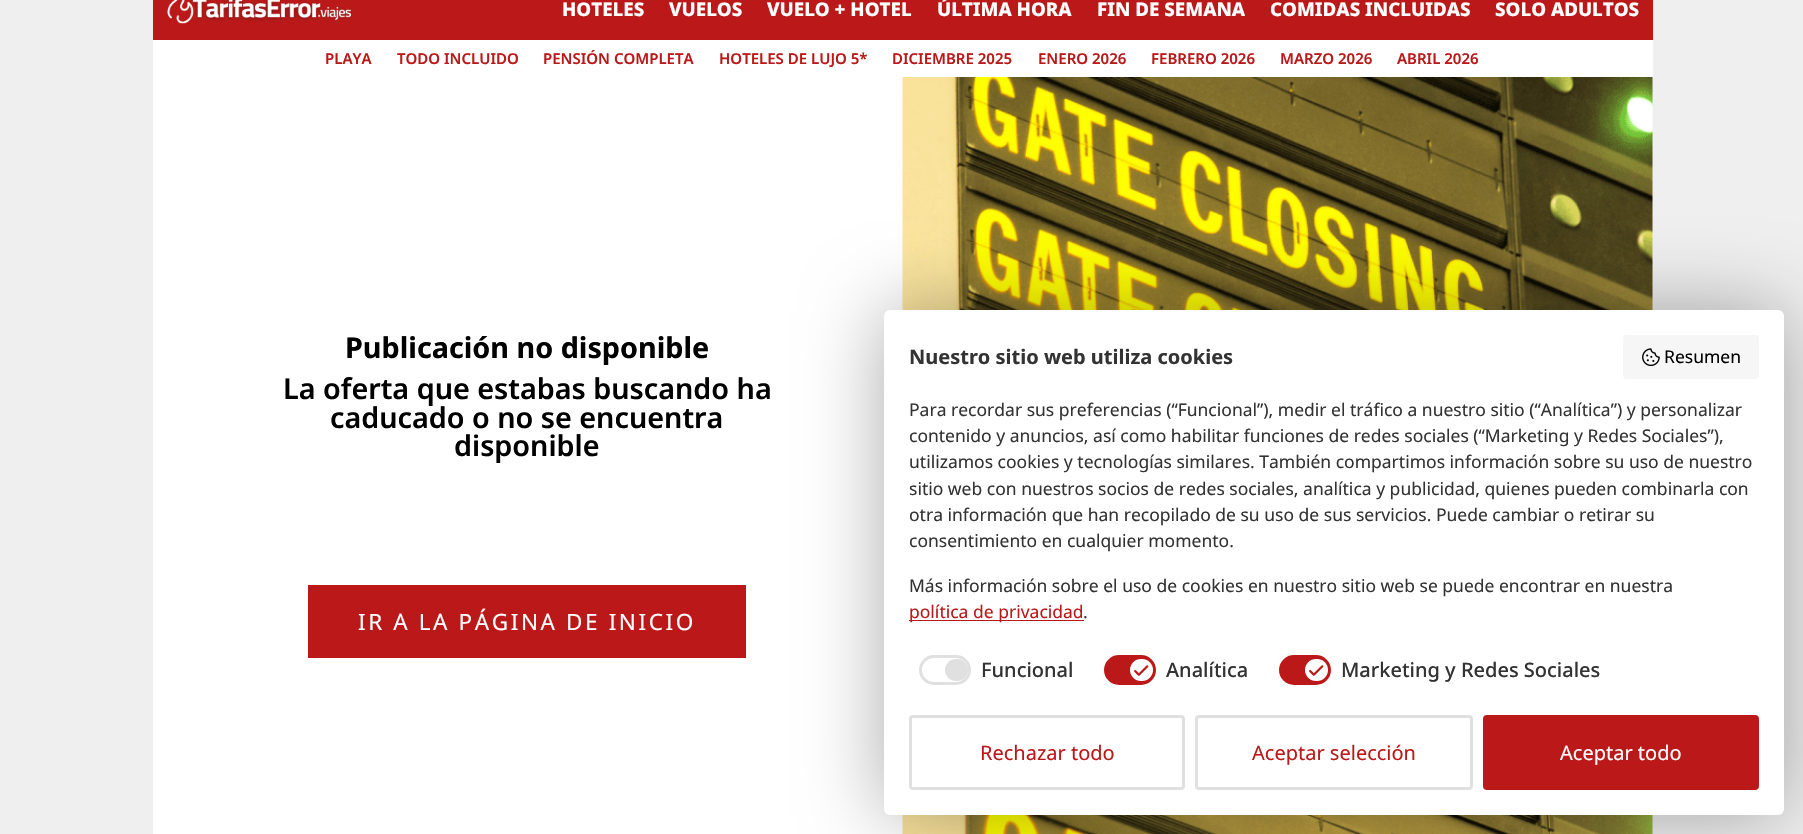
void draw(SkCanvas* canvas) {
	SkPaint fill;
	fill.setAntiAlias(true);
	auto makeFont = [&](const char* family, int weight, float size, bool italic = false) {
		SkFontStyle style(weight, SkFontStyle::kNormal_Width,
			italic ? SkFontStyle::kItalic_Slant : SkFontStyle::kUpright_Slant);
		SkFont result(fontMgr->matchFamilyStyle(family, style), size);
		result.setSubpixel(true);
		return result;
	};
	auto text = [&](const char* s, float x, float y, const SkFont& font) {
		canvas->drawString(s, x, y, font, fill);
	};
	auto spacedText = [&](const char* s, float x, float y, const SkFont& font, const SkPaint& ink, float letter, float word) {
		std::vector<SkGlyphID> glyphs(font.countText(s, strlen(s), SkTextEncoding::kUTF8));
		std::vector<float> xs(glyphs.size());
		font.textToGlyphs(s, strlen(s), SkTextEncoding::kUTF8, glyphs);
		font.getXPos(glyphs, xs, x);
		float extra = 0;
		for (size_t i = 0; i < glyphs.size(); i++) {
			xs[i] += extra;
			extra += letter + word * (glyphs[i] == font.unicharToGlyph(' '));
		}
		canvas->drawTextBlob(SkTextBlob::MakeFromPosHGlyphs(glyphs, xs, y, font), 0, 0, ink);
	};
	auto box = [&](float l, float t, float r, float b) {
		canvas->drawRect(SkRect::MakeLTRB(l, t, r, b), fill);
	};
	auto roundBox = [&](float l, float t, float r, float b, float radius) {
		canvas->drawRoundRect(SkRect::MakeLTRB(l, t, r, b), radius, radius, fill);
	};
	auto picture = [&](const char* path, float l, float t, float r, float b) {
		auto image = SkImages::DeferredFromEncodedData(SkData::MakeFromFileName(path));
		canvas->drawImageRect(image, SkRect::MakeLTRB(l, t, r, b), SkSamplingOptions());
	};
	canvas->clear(0xFFEFEFEF);
	fill.setColor(0xFFBB1919);
	box(153, 0, 1653, 40);
	picture("image0.png", 167, 0, 352, 24);
	fill.setColor(0xFFFFFFFF);
	box(153, 40, 1653, 78);
	box(153, 78, 903, 834);
	fill.setColor(0xFFBB1919);
	box(308, 585, 746, 658);
	picture("image1.png", 902, 77, 1653, 834);
	fill.setColor(0x54000000);
	fill.setMaskFilter(SkMaskFilter::MakeBlur(kNormal_SkBlurStyle, 40));
	canvas->drawRoundRect(SkRect::MakeLTRB(884, 310, 1784, 815), 6, 6, fill);
	fill.setMaskFilter(nullptr);
	fill.setColor(0xFFFFFFFF);
	roundBox(884, 310, 1784, 815, 6);
	fill.setColor(0xFFF6F6F6);
	roundBox(1623, 335, 1759, 379, 4);
	picture("image2.png", 1642, 348, 1660, 367);
	fill.setColor(0xFFBB1919);
	box(909, 620, 1084, 621);
	fill.setStyle(SkPaint::kStroke_Style);
	fill.setStrokeWidth(3);
	fill.setColor(0xFFE0E0E0);
	canvas->drawRoundRect(SkRect::MakeLTRB(920.5f, 656.5f, 969.5f, 683.5f), 13.5f, 13.5f, fill);
	fill.setStyle(SkPaint::kFill_Style);
	roundBox(945, 659, 968, 681, 11);
	fill.setColor(0xFFBB1919);
	canvas->drawRoundRect(SkRect::MakeLTRB(1105.5f, 656.5f, 1154.5f, 683.5f), 13.5f, 13.5f, fill);
	fill.setStyle(SkPaint::kStroke_Style);
	canvas->drawRoundRect(SkRect::MakeLTRB(1105.5f, 656.5f, 1154.5f, 683.5f), 13.5f, 13.5f, fill);
	fill.setStyle(SkPaint::kFill_Style);
	fill.setColor(0xFFFFFFFF);
	roundBox(1130, 659, 1153, 681, 11);
	picture("image3.png", 1134, 665, 1149, 676);
	fill.setColor(0xFFBB1919);
	canvas->drawRoundRect(SkRect::MakeLTRB(1280.5f, 656.5f, 1329.5f, 683.5f), 13.5f, 13.5f, fill);
	fill.setStyle(SkPaint::kStroke_Style);
	canvas->drawRoundRect(SkRect::MakeLTRB(1280.5f, 656.5f, 1329.5f, 683.5f), 13.5f, 13.5f, fill);
	fill.setStyle(SkPaint::kFill_Style);
	fill.setColor(0xFFFFFFFF);
	roundBox(1305, 659, 1328, 681, 11);
	picture("image3.png", 1309, 665, 1324, 676);
	fill.setStyle(SkPaint::kStroke_Style);
	fill.setColor(0xFFE0E0E0);
	canvas->drawRoundRect(SkRect::MakeLTRB(910.5f, 716.5f, 1183.5f, 788.5f), 2.5f, 2.5f, fill);
	canvas->drawRoundRect(SkRect::MakeLTRB(1196.5f, 716.5f, 1471.5f, 788.5f), 2.5f, 2.5f, fill);
	fill.setStyle(SkPaint::kFill_Style);
	fill.setColor(0xFFBB1919);
	canvas->drawRoundRect(SkRect::MakeLTRB(1484.5f, 716.5f, 1757.5f, 788.5f), 2.5f, 2.5f, fill);
	fill.setStyle(SkPaint::kStroke_Style);
	canvas->drawRoundRect(SkRect::MakeLTRB(1484.5f, 716.5f, 1757.5f, 788.5f), 2.5f, 2.5f, fill);
	auto font1 = makeFont("Noto Sans", 800, 18.75f);
	fill.setStyle(SkPaint::kFill_Style);
	fill.setColor(0xFFFFFFFF);
	text("HOTELES", 562, 16, font1);
	text("VUELOS", 669, 16, font1);
	text("VUELO + HOTEL", 767, 16, font1);
	text("ÚLTIMA HORA", 937, 16, font1);
	text("FIN DE SEMANA", 1097, 16, font1);
	text("COMIDAS INCLUIDAS", 1270, 16, font1);
	text("SOLO ADULTOS", 1495, 16, font1);
	auto font2 = makeFont("Noto Sans", 600, 15);
	fill.setColor(0xFFBB1919);
	text("PLAYA", 325, 64, font2);
	text("TODO INCLUIDO", 397, 64, font2);
	text("PENSIÓN COMPLETA", 543, 64, font2);
	text("HOTELES DE LUJO 5*", 719, 64, font2);
	text("DICIEMBRE 2025", 892, 64, font2);
	text("ENERO 2026", 1038, 64, font2);
	text("FEBRERO 2026", 1151, 64, font2);
	text("MARZO 2026", 1280, 64, font2);
	text("ABRIL 2026", 1397, 64, font2);
	auto font3 = makeFont("Noto Sans", 700, 28.75f);
	fill.setColor(0xFF000000);
	text("Publicación no disponible", 345, 358, font3);
	auto font4 = makeFont("Noto Sans", 600, 28.75f);
	text("La oferta que estabas buscando ha", 283, 399, font4);
	text("caducado o no se encuentra", 330, 428, font4);
	text("disponible", 454, 456, font4);
	auto font5 = makeFont("Noto Sans", 400, 22.5f);
	fill.setColor(0xFFFFFFFF);
	spacedText("IR A LA PÁGINA DE INICIO", 358, 630, font5, fill, 2.6f, 0);
	auto font6 = makeFont("Noto Sans", 700, 20);
	fill.setColor(0xFF333333);
	text("Nuestro sitio web utiliza cookies", 909, 364, font6);
	auto font7 = makeFont("Noto Sans", 400, 17.5f);
	fill.setColor(0xFF000000);
	text("Resumen", 1664, 363, font7);
	fill.setColor(0xFF333333);
	text("Para recordar sus preferencias (“Funcional”), medir el tráfico a nuestro sitio (“Analítica”) y personalizar", 909, 416, font7);
	text("contenido y anuncios, así como habilitar funciones de redes sociales (“Marketing y Redes Sociales”),", 909, 442, font7);
	text("utilizamos cookies y tecnologías similares. También compartimos información sobre su uso de nuestro", 909, 468, font7);
	text("sitio web con nuestros socios de redes sociales, analítica y publicidad, quienes pueden combinarla con", 909, 495, font7);
	text("otra información que han recopilado de su uso de sus servicios. Puede cambiar o retirar su", 909, 521, font7);
	text("consentimiento en cualquier momento.", 909, 547, font7);
	text("Más información sobre el uso de cookies en nuestro sitio web se puede encontrar en nuestra", 909, 592, font7);
	fill.setColor(0xFFBB1919);
	text("política de privacidad", 909, 618, font7);
	fill.setColor(0xFF333333);
	text(".", 1083, 618, font7);
	auto font8 = makeFont("Noto Sans", 500, 20);
	text("Funcional", 981, 677, font8);
	text("Analítica", 1166, 677, font8);
	text("Marketing y Redes Sociales", 1341, 677, font8);
	auto font9 = makeFont("Noto Sans", 400, 20);
	fill.setColor(0xFFBB1919);
	text("Rechazar todo", 980, 760, font9);
	text("Aceptar selección", 1252, 760, font9);
	fill.setColor(0xFFFFFFFF);
	text("Aceptar todo", 1560, 760, font9);
}
